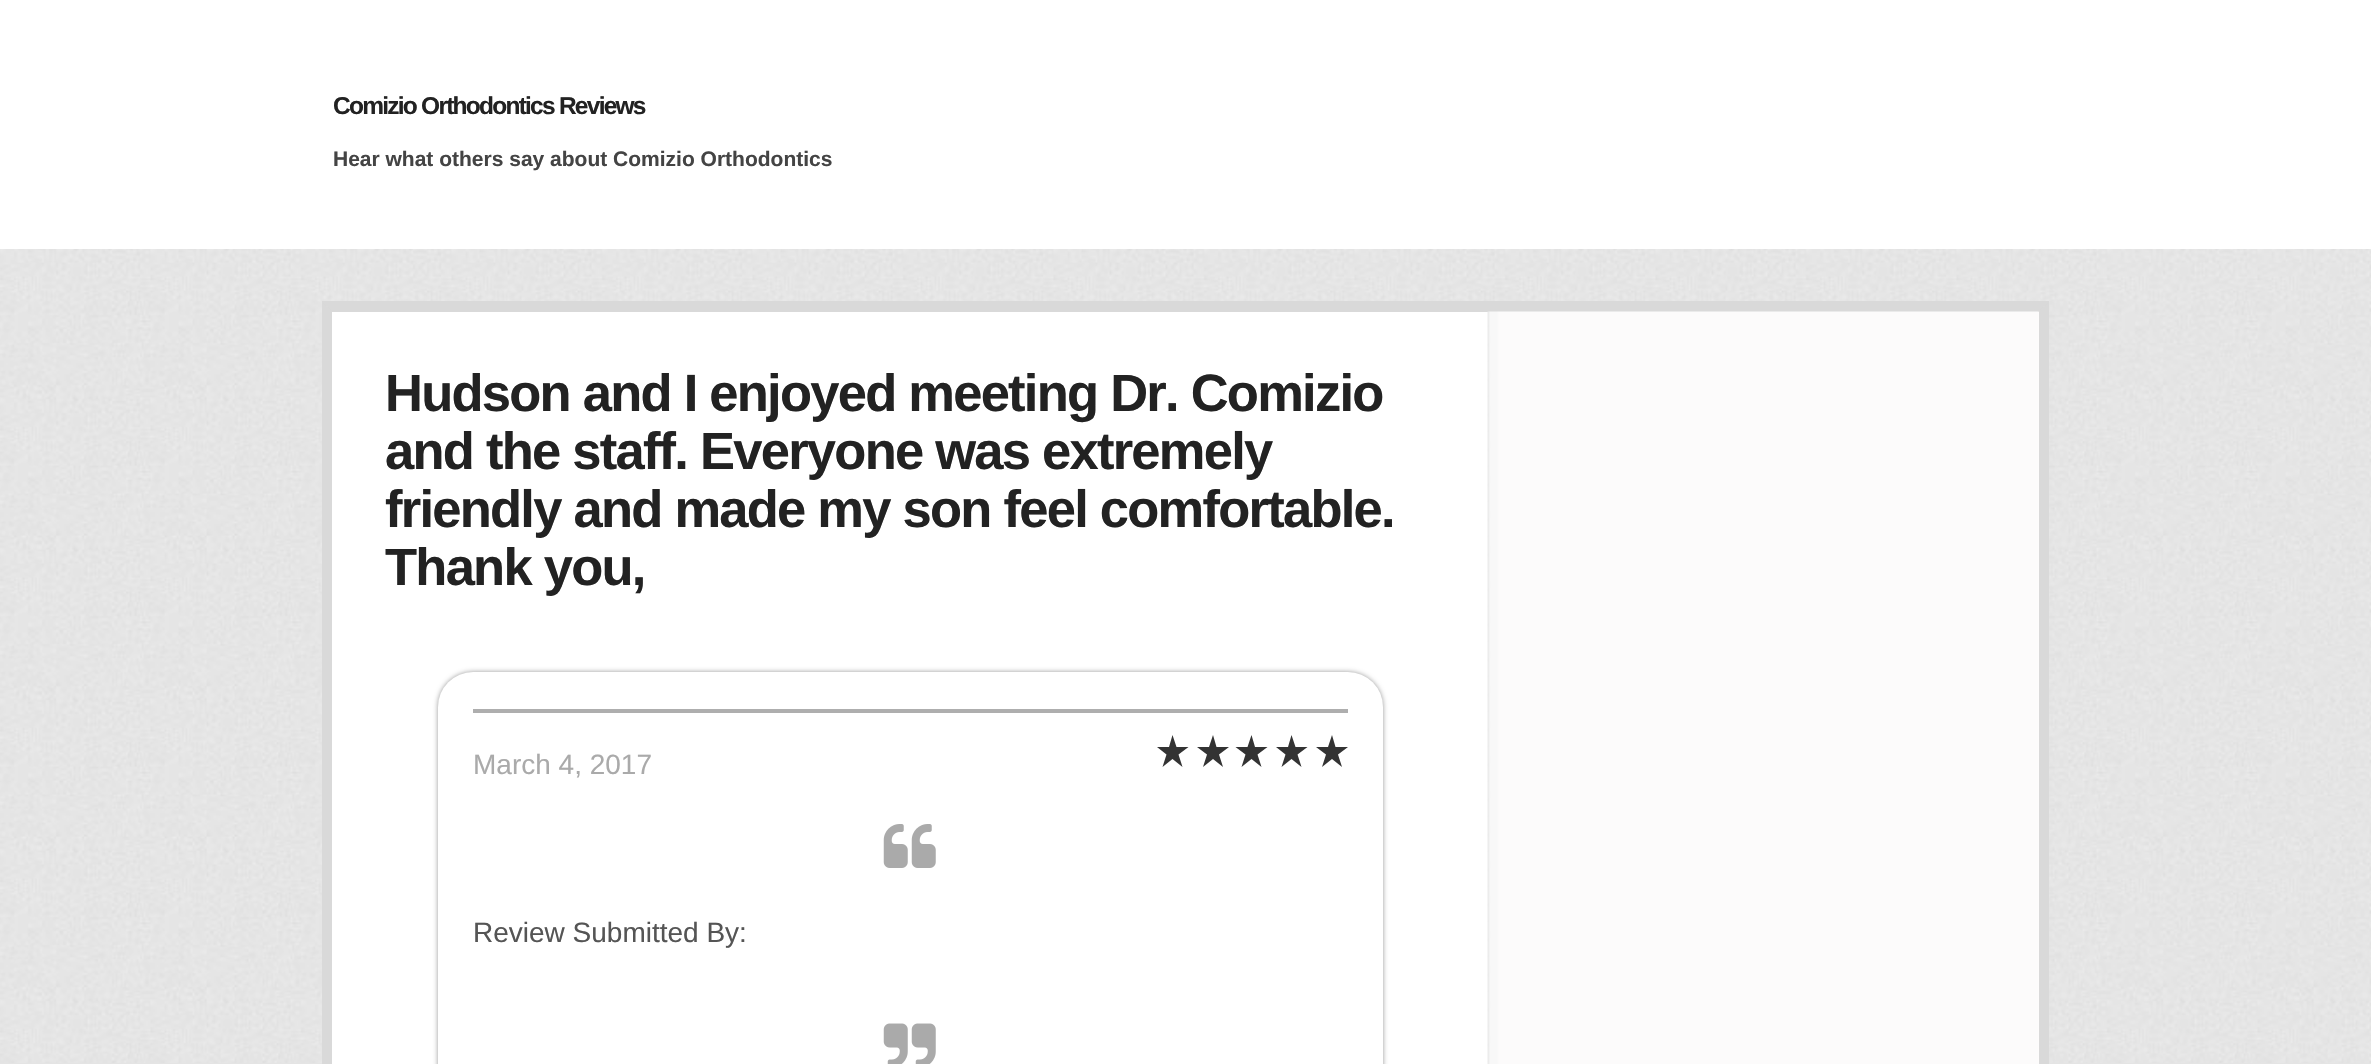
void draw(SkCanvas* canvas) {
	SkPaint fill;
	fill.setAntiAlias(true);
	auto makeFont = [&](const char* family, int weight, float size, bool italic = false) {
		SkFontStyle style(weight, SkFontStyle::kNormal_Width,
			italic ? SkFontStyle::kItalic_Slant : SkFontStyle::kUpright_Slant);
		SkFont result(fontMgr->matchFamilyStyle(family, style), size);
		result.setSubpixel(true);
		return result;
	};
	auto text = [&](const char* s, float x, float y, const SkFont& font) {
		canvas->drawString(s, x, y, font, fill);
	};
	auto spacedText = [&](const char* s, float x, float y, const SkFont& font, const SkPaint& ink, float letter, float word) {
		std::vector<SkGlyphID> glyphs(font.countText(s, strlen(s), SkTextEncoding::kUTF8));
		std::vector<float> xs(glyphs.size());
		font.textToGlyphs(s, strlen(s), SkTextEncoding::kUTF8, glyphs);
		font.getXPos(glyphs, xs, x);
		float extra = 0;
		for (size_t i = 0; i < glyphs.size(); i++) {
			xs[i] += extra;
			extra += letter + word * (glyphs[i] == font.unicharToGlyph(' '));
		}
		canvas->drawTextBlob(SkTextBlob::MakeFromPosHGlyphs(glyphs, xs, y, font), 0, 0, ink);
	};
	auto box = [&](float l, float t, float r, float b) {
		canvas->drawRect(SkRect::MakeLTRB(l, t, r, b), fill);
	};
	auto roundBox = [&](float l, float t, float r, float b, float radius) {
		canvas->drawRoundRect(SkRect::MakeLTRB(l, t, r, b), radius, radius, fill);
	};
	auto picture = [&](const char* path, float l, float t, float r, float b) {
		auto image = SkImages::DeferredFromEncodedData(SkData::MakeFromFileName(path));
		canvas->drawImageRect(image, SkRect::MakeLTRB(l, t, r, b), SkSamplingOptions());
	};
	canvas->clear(0xFFE4E4E4);
	picture("image0.png", 0, 249, 2371, 1063);
	fill.setColor(0xFFFFFFFF);
	box(0, 0, 2371, 249);
	box(322, 301, 2049, 1064);
	fill.setColor(0xFFD9D9D9);
	canvas->drawPath(SkPathBuilder().moveTo(322, 301).lineTo(2049, 301).lineTo(2039, 312).lineTo(332, 312).close().detach(), fill);
	fill.setColor(0x26000000);
	canvas->drawPath(SkPathBuilder().moveTo(2049, 301).lineTo(2049, 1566).lineTo(2039, 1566).lineTo(2039, 312).close().detach(), fill);
	canvas->drawPath(SkPathBuilder().moveTo(322, 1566).lineTo(322, 301).lineTo(332, 312).lineTo(332, 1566).close().detach(), fill);
	fill.setColor(0xFF999999);
	fill.setMaskFilter(SkMaskFilter::MakeBlur(kNormal_SkBlurStyle, 2.5f));
	canvas->drawRoundRect(SkRect::MakeLTRB(438, 672, 1383, 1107), 35, 35, fill);
	fill.setMaskFilter(nullptr);
	fill.setColor(0xFFFFFFFF);
	roundBox(438, 672, 1383, 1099, 35);
	fill.setColor(0xFFAEAEAE);
	box(473, 709, 1348, 713);
	fill.setColor(0xFF333333);
	canvas->drawPath(SkPathBuilder().moveTo(1188.5f, 747).lineTo(1178.5f, 754.5f).lineTo(1182.5f, 767).lineTo(1172.5f, 759).lineTo(1162.5f, 767).lineTo(1166.5f, 754.5f).lineTo(1157, 747).lineTo(1169, 747).lineTo(1172.5f, 735).lineTo(1176.5f, 747).close().detach(), fill);
	canvas->drawPath(SkPathBuilder().moveTo(1229, 747).lineTo(1219, 754.5f).lineTo(1223, 767).lineTo(1213, 759).lineTo(1203, 767).lineTo(1207, 754.5f).lineTo(1197, 747).lineTo(1209, 747).lineTo(1213, 735).lineTo(1216.5f, 747).close().detach(), fill);
	canvas->drawPath(SkPathBuilder().moveTo(1267.5f, 747).lineTo(1257.5f, 754.5f).lineTo(1261.5f, 767).lineTo(1251.5f, 759).lineTo(1241.5f, 767).lineTo(1245.5f, 754.5f).lineTo(1235.5f, 747).lineTo(1247.5f, 747).lineTo(1251.5f, 735).lineTo(1255, 747).close().detach(), fill);
	canvas->drawPath(SkPathBuilder().moveTo(1307.5f, 747).lineTo(1297.5f, 754.5f).lineTo(1301.5f, 767).lineTo(1291.5f, 759).lineTo(1281.5f, 767).lineTo(1285.5f, 754.5f).lineTo(1276, 747).lineTo(1288, 747).lineTo(1291.5f, 735).lineTo(1295.5f, 747).close().detach(), fill);
	canvas->drawPath(SkPathBuilder().moveTo(1348, 747).lineTo(1338, 754.5f).lineTo(1342, 767).lineTo(1332, 759).lineTo(1322, 767).lineTo(1326, 754.5f).lineTo(1316, 747).lineTo(1328, 747).lineTo(1332, 735).lineTo(1335.5f, 747).close().detach(), fill);
	picture("image1.png", 883, 824, 936, 868);
	picture("image2.png", 883, 1023, 936, 1064);
	picture("image3.png", 1487, 311, 2039, 1064);
	auto font1 = makeFont("Liberation Sans", 700, 24.5f);
	fill.setColor(0xFF222222);
	spacedText("Comizio Orthodontics Reviews", 333, 114, font1, fill, -1.75f, 0);
	auto font2 = makeFont("Liberation Sans", 700, 21);
	fill.setColor(0xFF444444);
	text("Hear what others say about Comizio Orthodontics", 333, 166, font2);
	auto font3 = makeFont("Liberation Sans", 700, 52.5f);
	fill.setColor(0xFF222222);
	spacedText("Hudson and I enjoyed meeting Dr. Comizio", 385, 411, font3, fill, -1.75f, 0);
	spacedText("and the staff. Everyone was extremely", 385, 469, font3, fill, -1.75f, 0);
	spacedText("friendly and made my son feel comfortable.", 385, 527, font3, fill, -1.75f, 0);
	spacedText("Thank you,", 385, 585, font3, fill, -1.75f, 0);
	auto font4 = makeFont("Liberation Sans", 400, 28);
	fill.setColor(0xFFAAAAAA);
	text("March 4, 2017", 473, 774, font4);
	fill.setColor(0xFF555555);
	text("Review Submitted By:", 473, 942, font4);
}
